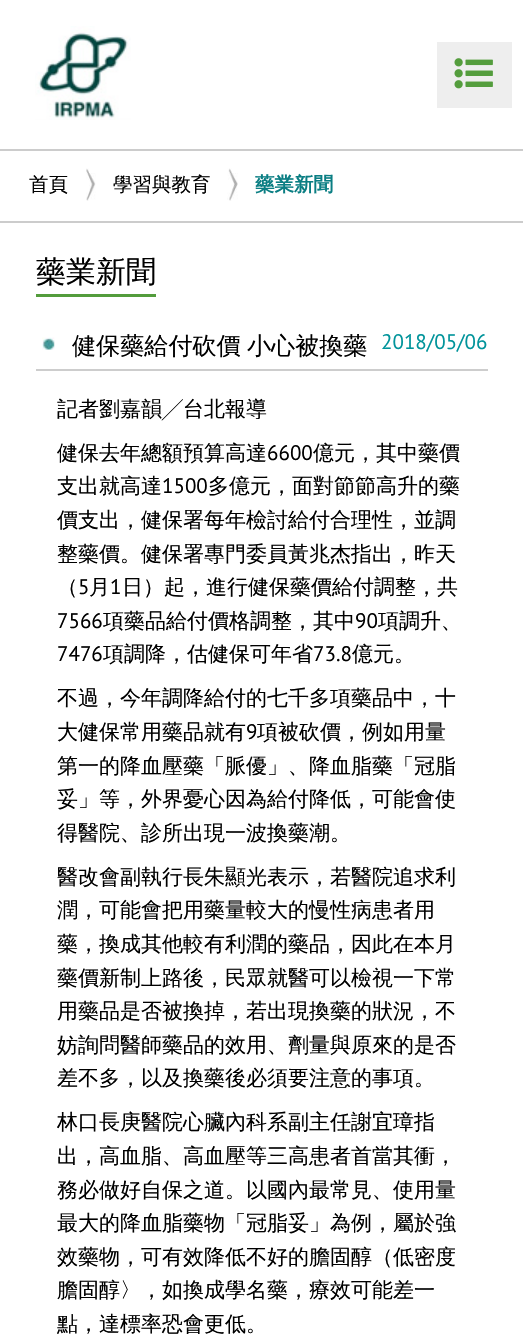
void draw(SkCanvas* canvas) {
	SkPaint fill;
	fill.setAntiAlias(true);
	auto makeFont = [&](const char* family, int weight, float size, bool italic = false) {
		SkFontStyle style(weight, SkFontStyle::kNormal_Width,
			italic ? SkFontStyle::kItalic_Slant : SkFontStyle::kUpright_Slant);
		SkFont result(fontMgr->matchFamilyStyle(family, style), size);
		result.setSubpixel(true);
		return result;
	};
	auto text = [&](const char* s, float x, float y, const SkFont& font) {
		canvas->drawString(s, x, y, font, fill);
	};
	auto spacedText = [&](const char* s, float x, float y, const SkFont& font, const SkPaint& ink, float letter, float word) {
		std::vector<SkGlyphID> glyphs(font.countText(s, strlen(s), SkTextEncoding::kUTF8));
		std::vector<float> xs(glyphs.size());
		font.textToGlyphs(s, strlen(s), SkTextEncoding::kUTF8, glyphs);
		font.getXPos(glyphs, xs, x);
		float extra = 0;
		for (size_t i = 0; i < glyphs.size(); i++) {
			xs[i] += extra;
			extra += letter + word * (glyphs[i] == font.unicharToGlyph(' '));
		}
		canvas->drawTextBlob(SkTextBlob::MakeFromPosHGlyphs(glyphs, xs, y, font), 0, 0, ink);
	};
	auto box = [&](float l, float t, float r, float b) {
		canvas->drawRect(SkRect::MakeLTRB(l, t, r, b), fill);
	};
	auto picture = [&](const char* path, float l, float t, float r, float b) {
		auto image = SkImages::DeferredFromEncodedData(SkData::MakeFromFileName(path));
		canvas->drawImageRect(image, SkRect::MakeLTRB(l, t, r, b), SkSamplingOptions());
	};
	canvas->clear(0xFFFFFFFF);
	picture("image0.png", 35, 26, 131, 120);
	fill.setColor(0xFFEEEEEE);
	box(437, 42, 512, 108);
	picture("image1.png", 454, 58, 493, 89);
	fill.setColor(0xFFCCCCCC);
	box(0, 149, 523, 151);
	box(0, 221, 523, 223);
	picture("image2.png", 86, 168, 96, 201);
	picture("image3.png", 227, 168, 238, 201);
	fill.setColor(0xFF539C3C);
	box(36, 294, 156, 297);
	fill.setColor(0xFFCDCDCD);
	box(36, 369, 488, 371);
	picture("image4.png", 42, 337, 55, 350);
	auto font1 = makeFont("WenQuanYi Zen Hei", 500, 19.5f);
	fill.setColor(0xFF000000);
	text("首頁", 29, 191, font1);
	text("學習與教育", 113, 191, font1);
	auto font2 = makeFont("WenQuanYi Zen Hei", 700, 19.5f);
	fill.setColor(0xFF0A7E83);
	text("藥業新聞", 255, 191, font2);
	auto font3 = makeFont("WenQuanYi Zen Hei", 500, 30);
	fill.setColor(0xFF000000);
	text("藥業新聞", 36, 282, font3);
	auto font4 = makeFont("WenQuanYi Zen Hei", 500, 24.1f);
	spacedText("健保藥給付砍價 小心被換藥", 72, 354, font4, fill, 0, -1);
	auto font5 = makeFont("PT Sans", 400, 21);
	fill.setColor(0xFF01949B);
	text("2018/05/06", 381, 349, font5);
	auto font6 = makeFont("WenQuanYi Zen Hei", 500, 21);
	fill.setColor(0xFF000000);
	text("記者劉嘉韻╱台北報導", 57, 416, font6);
	text("健保去年總額預算高達", 57, 460, font6);
	text("6600", 267, 460, font5);
	text("億元，其中藥價", 313, 460, font6);
	text("支出就高達", 57, 493, font6);
	text("1500", 162, 493, font5);
	text("多億元，面對節節高升的藥", 208, 493, font6);
	text("價支出，健保署每年檢討給付合理性，並調", 57, 527, font6);
	text("整藥價。健保署專門委員黃兆杰指出，昨天", 57, 561, font6);
	text("（", 57, 594, font6);
	text("5", 78, 594, font5);
	text("月", 89, 594, font6);
	text("1", 110, 594, font5);
	text("日）起，進行健保藥價給付調整，共", 122, 594, font6);
	text("7566", 57, 628, font5);
	text("項藥品給付價格調整，其中", 103, 628, font6);
	text("90", 355, 628, font5);
	text("項調升、", 378, 628, font6);
	text("7476", 57, 661, font5);
	text("項調降，估健保可年省", 103, 661, font6);
	text("73.8", 313, 661, font5);
	text("億元。", 352, 661, font6);
	text("不過，今年調降給付的七千多項藥品中，十", 57, 705, font6);
	text("大健保常用藥品就有", 57, 739, font6);
	text("9", 246, 739, font5);
	text("項被砍價，例如用量", 257, 739, font6);
	text("第一的降血壓藥「脈優」、降血脂藥「冠脂", 57, 773, font6);
	text("妥」等，外界憂心因為給付降低，可能會使", 57, 806, font6);
	text("得醫院、診所出現一波換藥潮。", 57, 840, font6);
	text("醫改會副執行長朱顯光表示，若醫院追求利", 57, 884, font6);
	text("潤，可能會把用藥量較大的慢性病患者用", 57, 917, font6);
	text("藥，換成其他較有利潤的藥品，因此在本月", 57, 951, font6);
	text("藥價新制上路後，民眾就醫可以檢視一下常", 57, 985, font6);
	text("用藥品是否被換掉，若出現換藥的狀況，不", 57, 1018, font6);
	text("妨詢問醫師藥品的效用、劑量與原來的是否", 57, 1052, font6);
	text("差不多，以及換藥後必須要注意的事項。", 57, 1085, font6);
	text("林口長庚醫院心臟內科系副主任謝宜璋指", 57, 1129, font6);
	text("出，高血脂、高血壓等三高患者首當其衝，", 57, 1163, font6);
	text("務必做好自保之道。以國內最常見、使用量", 57, 1197, font6);
	text("最大的降血脂藥物「冠脂妥」為例，屬於強", 57, 1230, font6);
	text("效藥物，可有效降低不好的膽固醇（低密度", 57, 1264, font6);
	text("膽固醇〉，如換成學名藥，療效可能差一", 57, 1297, font6);
	text("點，達標率恐會更低。", 57, 1331, font6);
}
